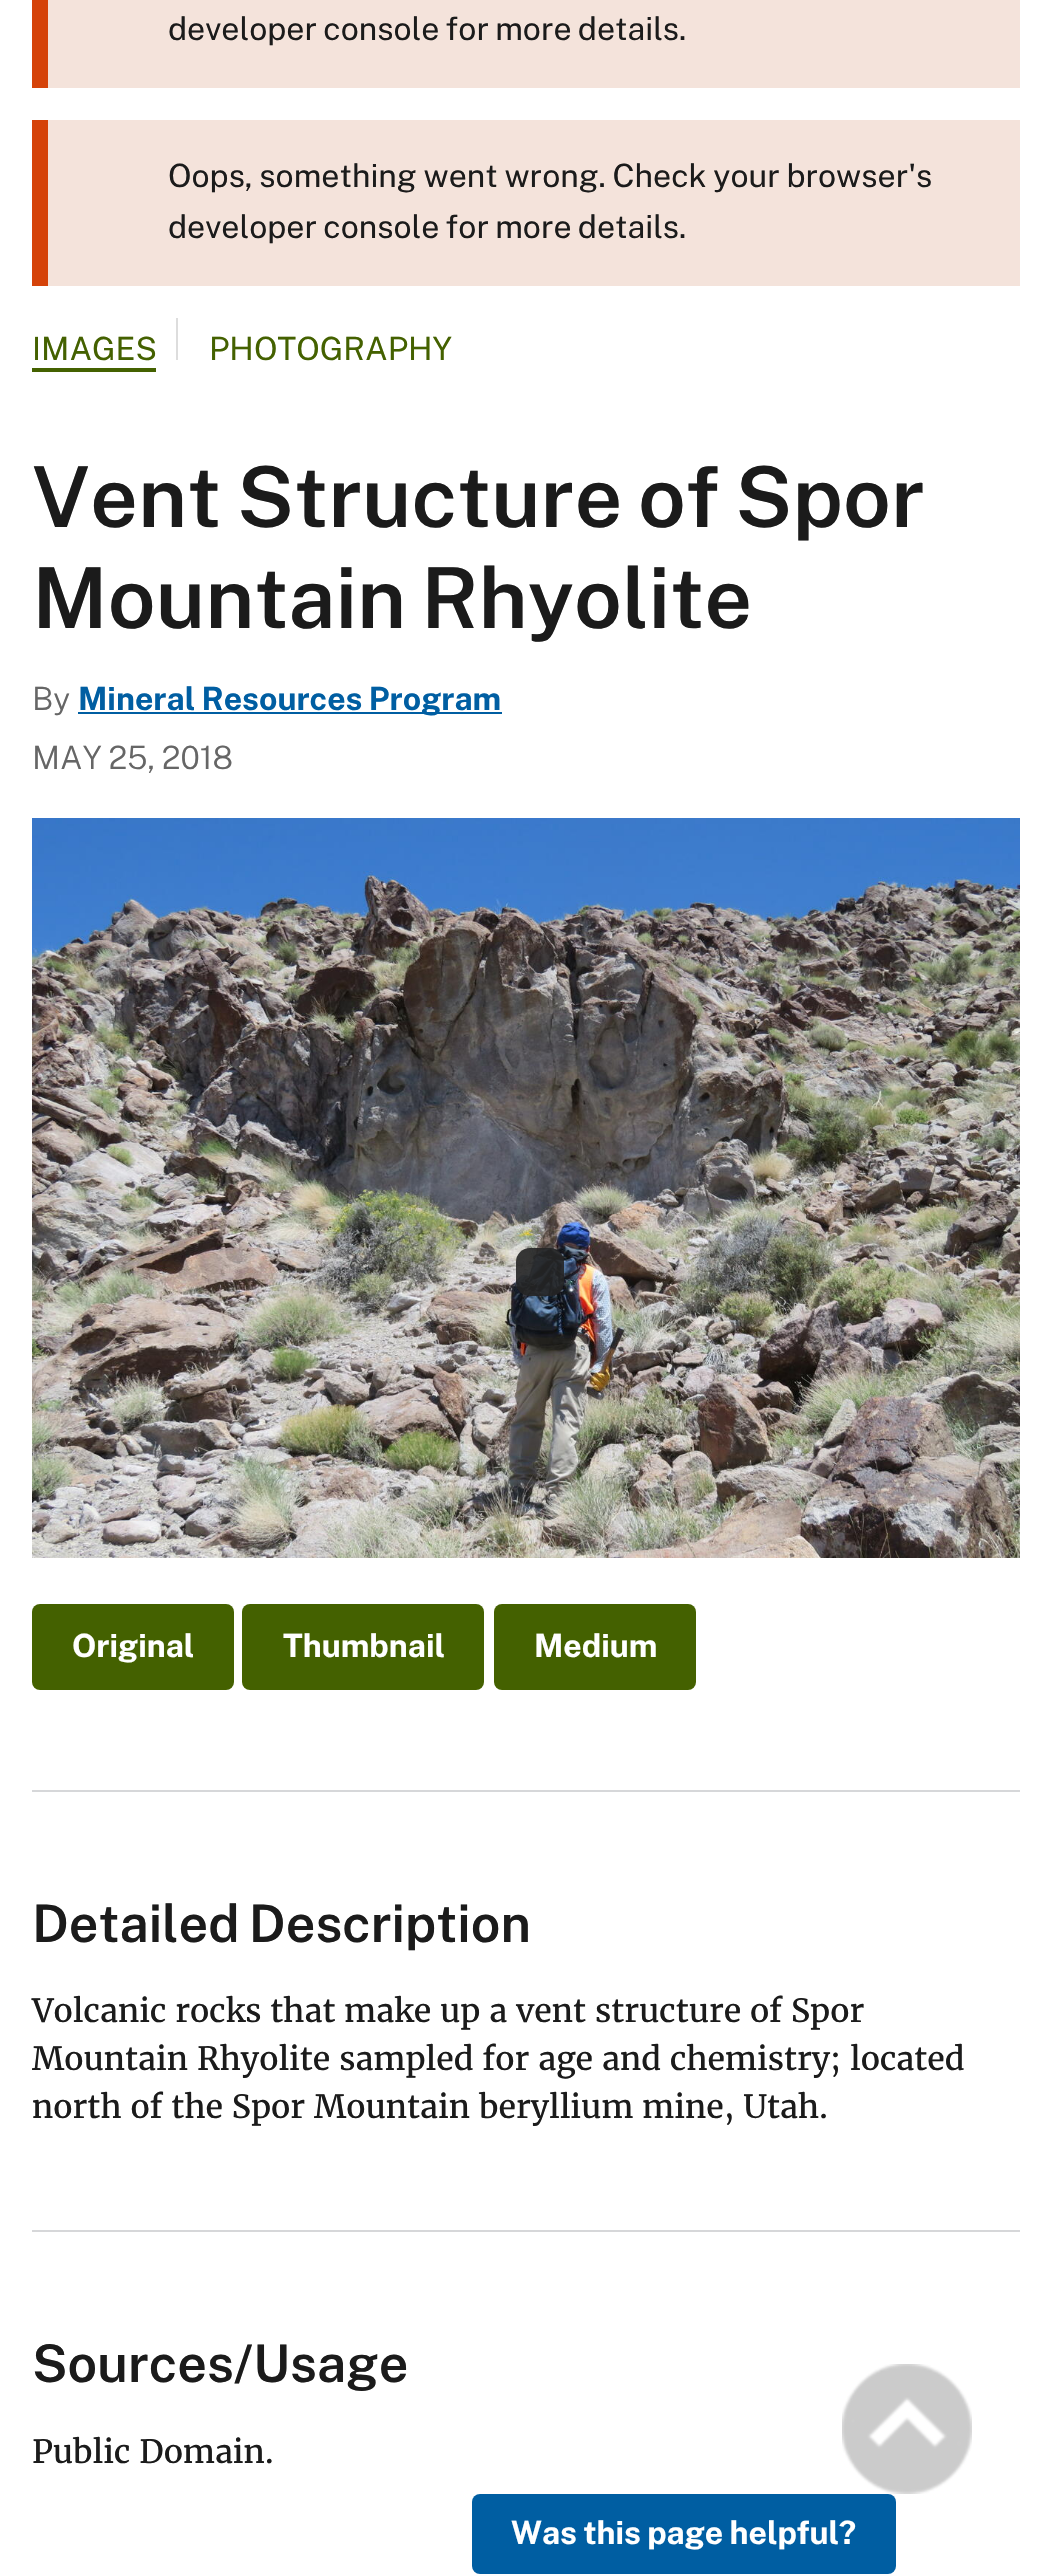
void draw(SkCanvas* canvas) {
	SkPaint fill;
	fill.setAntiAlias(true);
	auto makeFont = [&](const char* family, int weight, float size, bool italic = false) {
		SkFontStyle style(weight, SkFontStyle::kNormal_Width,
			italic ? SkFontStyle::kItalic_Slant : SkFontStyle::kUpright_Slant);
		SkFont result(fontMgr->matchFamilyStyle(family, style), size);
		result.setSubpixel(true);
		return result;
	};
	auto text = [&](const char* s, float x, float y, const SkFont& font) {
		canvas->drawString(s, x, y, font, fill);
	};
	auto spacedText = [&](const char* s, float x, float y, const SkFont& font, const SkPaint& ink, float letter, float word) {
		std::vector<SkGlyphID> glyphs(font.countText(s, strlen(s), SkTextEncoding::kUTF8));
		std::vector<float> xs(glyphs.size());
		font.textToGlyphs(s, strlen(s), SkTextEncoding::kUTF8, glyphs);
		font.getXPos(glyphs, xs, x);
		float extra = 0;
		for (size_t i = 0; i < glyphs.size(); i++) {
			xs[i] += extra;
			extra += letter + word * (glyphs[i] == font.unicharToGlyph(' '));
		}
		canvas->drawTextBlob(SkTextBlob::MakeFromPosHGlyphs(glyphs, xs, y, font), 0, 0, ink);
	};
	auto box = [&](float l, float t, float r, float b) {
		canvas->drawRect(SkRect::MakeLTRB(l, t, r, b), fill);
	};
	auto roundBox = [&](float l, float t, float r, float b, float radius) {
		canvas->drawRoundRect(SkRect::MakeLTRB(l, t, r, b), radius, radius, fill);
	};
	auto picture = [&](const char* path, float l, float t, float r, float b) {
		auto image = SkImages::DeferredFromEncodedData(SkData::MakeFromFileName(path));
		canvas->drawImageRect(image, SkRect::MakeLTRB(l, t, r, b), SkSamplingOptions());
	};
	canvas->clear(0xFFFFFFFF);
	fill.setColor(0xFFF4E3DB);
	box(48, 0, 1020, 88);
	fill.setColor(0xFFD54309);
	box(32, 0, 48, 88);
	fill.setColor(0xFFF4E3DB);
	box(48, 120, 1020, 286);
	fill.setColor(0xFFD54309);
	box(32, 120, 48, 286);
	fill.setColor(0xFF446100);
	box(32, 368, 156, 372);
	fill.setColor(0xFFDDDDDD);
	box(176, 318, 178, 360);
	fill.setColor(0xFF005EA2);
	box(78, 712, 502, 714);
	fill.setColor(0xFFD6D7D9);
	box(32, 1790, 1020, 1792);
	picture("image0.png", 32, 818, 1020, 1558);
	fill.setColor(0xFF446100);
	roundBox(32, 1604, 234, 1690, 8);
	roundBox(242, 1604, 484, 1690, 8);
	roundBox(494, 1604, 696, 1690, 8);
	fill.setColor(0xFFD6D7D9);
	box(32, 2230, 1020, 2232);
	picture("image1.png", 842, 2364, 972, 2494);
	fill.setColor(0xE6232323);
	roundBox(516, 1248, 564, 1296, 14);
	fill.setColor(0xFF005EA2);
	roundBox(472, 2494, 896, 2574, 8);
	auto font1 = makeFont("Public Sans", 400, 32);
	fill.setColor(0xFF1B1B1B);
	spacedText("developer console for more details.", 168, 40, font1, fill, 0, -1.5f);
	spacedText("Oops, something went wrong. Check your browser's", 168, 187, font1, fill, 0, -1);
	spacedText("developer console for more details.", 168, 238, font1, fill, 0, -1.5f);
	fill.setColor(0xFF446100);
	text("IMAGES", 32, 360, font1);
	text("PHOTOGRAPHY", 209, 360, font1);
	auto font2 = makeFont("Public Sans", 600, 84);
	fill.setColor(0xFF1B1B1B);
	spacedText("Vent Structure of Spor", 32, 527, font2, fill, 0, -4);
	spacedText("Mountain Rhyolite", 32, 628, font2, fill, 0, -5);
	auto font3 = makeFont("Public Sans", 300, 32);
	fill.setColor(0xFF666666);
	text("By", 32, 710, font3);
	auto font4 = makeFont("Public Sans", 700, 32);
	fill.setColor(0xFF005EA2);
	spacedText("Mineral Resources Program", 78, 710, font4, fill, 0, -1);
	fill.setColor(0xFF666666);
	spacedText("MAY 25, 2018", 32, 769, font3, fill, 0, -1);
	fill.setColor(0xFFFFFFFF);
	text("Original", 72, 1657, font4);
	text("Thumbnail", 283, 1657, font4);
	text("Medium", 534, 1657, font4);
	auto font5 = makeFont("Public Sans", 600, 52);
	fill.setColor(0xFF1B1B1B);
	spacedText("Detailed Description", 32, 1942, font5, fill, 0, -3);
	auto font6 = makeFont("Merriweather", 400, 32);
	text("Volcanic rocks that make up a vent structure of Spor", 32, 2022, font6);
	text("Mountain Rhyolite sampled for age and chemistry; located", 32, 2070, font6);
	text("north of the Spor Mountain beryllium mine, Utah.", 32, 2118, font6);
	text("Sources/Usage", 32, 2382, font5);
	text("Public Domain.", 32, 2463, font6);
	fill.setColor(0xFFFFFFFF);
	spacedText("Was this page helpful?", 511, 2544, font4, fill, 0, -1);
}
